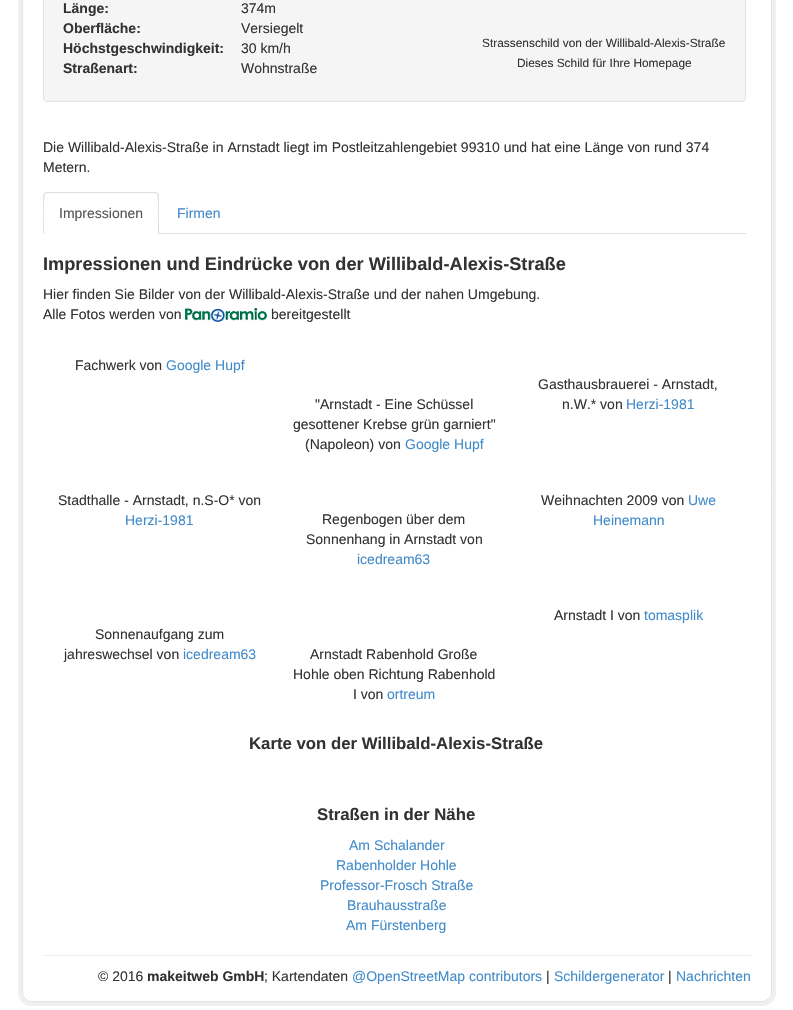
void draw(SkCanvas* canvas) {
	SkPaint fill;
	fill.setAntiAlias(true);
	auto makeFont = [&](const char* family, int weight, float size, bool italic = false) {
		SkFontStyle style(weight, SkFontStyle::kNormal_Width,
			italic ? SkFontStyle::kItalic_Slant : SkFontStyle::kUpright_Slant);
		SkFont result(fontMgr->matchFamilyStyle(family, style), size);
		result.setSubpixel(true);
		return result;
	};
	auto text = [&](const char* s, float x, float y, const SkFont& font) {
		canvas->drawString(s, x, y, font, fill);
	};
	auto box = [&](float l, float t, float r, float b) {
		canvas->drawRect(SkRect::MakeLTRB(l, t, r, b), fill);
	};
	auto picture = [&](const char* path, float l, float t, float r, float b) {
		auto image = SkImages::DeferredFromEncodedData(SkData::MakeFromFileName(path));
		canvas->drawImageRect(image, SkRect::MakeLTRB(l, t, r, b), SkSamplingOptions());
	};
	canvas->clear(0xFFFFFFFF);
	fill.setStyle(SkPaint::kStroke_Style);
	fill.setStrokeWidth(4);
	fill.setColor(0xFFF0F0F0);
	canvas->drawRoundRect(SkRect::MakeLTRB(20, -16, 774, 1004), 12, 12, fill);
	fill.setStrokeWidth(1);
	fill.setColor(0xFFE3E3E3);
	canvas->drawRoundRect(SkRect::MakeLTRB(22.5f, -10.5f, 771.5f, 1001.5f), 9.5f, 9.5f, fill);
	fill.setStyle(SkPaint::kFill_Style);
	fill.setColor(0xFFF5F5F5);
	canvas->drawRoundRect(SkRect::MakeLTRB(43.5f, -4.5f, 745.5f, 101.5f), 3.5f, 3.5f, fill);
	fill.setStyle(SkPaint::kStroke_Style);
	fill.setColor(0xFFE3E3E3);
	canvas->drawRoundRect(SkRect::MakeLTRB(43.5f, -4.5f, 745.5f, 101.5f), 3.5f, 3.5f, fill);
	fill.setStyle(SkPaint::kFill_Style);
	fill.setColor(0xFFDDDDDD);
	box(159, 233, 746, 234);
	canvas->drawPath(SkPathBuilder().moveTo(47, 192).lineTo(44, 193).lineTo(45, 194).lineTo(47, 193).lineTo(155, 193).lineTo(157, 194).lineTo(158, 193).lineTo(155, 192).close().detach(), fill);
	canvas->drawPath(SkPathBuilder().moveTo(159, 234).lineTo(159, 196).cubicTo(159, 195, 158, 194, 158, 193).lineTo(157, 194).cubicTo(159, 196, 158, 228, 158, 233).close().detach(), fill);
	canvas->drawPath(SkPathBuilder().moveTo(43, 234).lineTo(44, 233).cubicTo(44, 228, 43, 196, 45, 194).lineTo(44, 193).lineTo(43, 196).close().detach(), fill);
	picture("image0.png", 185, 308, 267, 322);
	fill.setColor(0xFFEEEEEE);
	box(43, 955, 751, 956);
	auto font1 = makeFont("Liberation Sans", 700, 14);
	fill.setColor(0xFF333333);
	text("Länge:", 63, 13, font1);
	auto font2 = makeFont("Liberation Sans", 400, 14);
	text("374m", 241, 13, font2);
	text("Oberfläche:", 63, 33, font1);
	text("Versiegelt", 241, 33, font2);
	text("Höchstgeschwindigkeit:", 63, 53, font1);
	text("30 km/h", 241, 53, font2);
	auto font3 = makeFont("Liberation Sans", 400, 11.9f);
	text("Strassenschild von der Willibald-Alexis-Straße", 482, 47, font3);
	text("Dieses Schild für Ihre Homepage", 517, 67, font3);
	text("Straßenart:", 63, 73, font1);
	text("Wohnstraße", 241, 73, font2);
	text("Die Willibald-Alexis-Straße in Arnstadt liegt im Postleitzahlengebiet 99310 und hat eine Länge von rund 374", 43, 152, font2);
	text("Metern.", 43, 172, font2);
	fill.setColor(0xFF555555);
	text("Impressionen", 59, 218, font2);
	fill.setColor(0xFF428BCA);
	text("Firmen", 177, 218, font2);
	auto font4 = makeFont("Liberation Sans", 700, 18.2f);
	fill.setColor(0xFF333333);
	text("Impressionen und Eindrücke von der Willibald-Alexis-Straße", 43, 270, font4);
	text("Hier finden Sie Bilder von der Willibald-Alexis-Straße und der nahen Umgebung.", 43, 299, font2);
	text("Alle Fotos werden von", 43, 319, font2);
	text("bereitgestellt", 271, 319, font2);
	text("Fachwerk von", 75, 370, font2);
	fill.setColor(0xFF428BCA);
	text("Google Hupf", 166, 370, font2);
	fill.setColor(0xFF333333);
	text("Gasthausbrauerei - Arnstadt,", 538, 389, font2);
	text("n.W.* von", 562, 409, font2);
	fill.setColor(0xFF428BCA);
	text("Herzi-1981", 626, 409, font2);
	fill.setColor(0xFF333333);
	text("\"Arnstadt - Eine Schüssel", 315, 409, font2);
	text("gesottener Krebse grün garniert\"", 293, 429, font2);
	text("(Napoleon) von", 305, 449, font2);
	fill.setColor(0xFF428BCA);
	text("Google Hupf", 405, 449, font2);
	fill.setColor(0xFF333333);
	text("Stadthalle - Arnstadt, n.S-O* von", 58, 505, font2);
	fill.setColor(0xFF428BCA);
	text("Herzi-1981", 125, 525, font2);
	fill.setColor(0xFF333333);
	text("Regenbogen über dem", 322, 524, font2);
	text("Sonnenhang in Arnstadt von", 306, 544, font2);
	fill.setColor(0xFF428BCA);
	text("icedream63", 357, 564, font2);
	fill.setColor(0xFF333333);
	text("Weihnachten 2009 von", 541, 505, font2);
	fill.setColor(0xFF428BCA);
	text("Uwe", 688, 505, font2);
	text("Heinemann", 593, 525, font2);
	fill.setColor(0xFF333333);
	text("Arnstadt I von", 554, 620, font2);
	fill.setColor(0xFF428BCA);
	text("tomasplik", 644, 620, font2);
	fill.setColor(0xFF333333);
	text("Sonnenaufgang zum", 95, 639, font2);
	text("jahreswechsel von", 64, 659, font2);
	fill.setColor(0xFF428BCA);
	text("icedream63", 183, 659, font2);
	fill.setColor(0xFF333333);
	text("Arnstadt Rabenhold Große", 310, 659, font2);
	text("Hohle oben Richtung Rabenhold", 293, 679, font2);
	text("I von", 353, 699, font2);
	fill.setColor(0xFF428BCA);
	text("ortreum", 387, 699, font2);
	auto font5 = makeFont("Liberation Sans", 700, 16.75f);
	fill.setColor(0xFF333333);
	text("Karte von der Willibald-Alexis-Straße", 249, 749, font5);
	text("Straßen in der Nähe", 317, 820, font5);
	fill.setColor(0xFF428BCA);
	text("Am Schalander", 349, 850, font2);
	text("Rabenholder Hohle", 336, 870, font2);
	text("Professor-Frosch Straße", 320, 890, font2);
	text("Brauhausstraße", 347, 910, font2);
	text("Am Fürstenberg", 346, 930, font2);
	fill.setColor(0xFF333333);
	text("© 2016", 98, 981, font2);
	text("makeitweb GmbH", 147, 981, font1);
	text("; Kartendaten", 264, 981, font2);
	fill.setColor(0xFF428BCA);
	text("@OpenStreetMap contributors", 352, 981, font2);
	fill.setColor(0xFF333333);
	text("|", 546, 981, font2);
	fill.setColor(0xFF428BCA);
	text("Schildergenerator", 554, 981, font2);
	fill.setColor(0xFF333333);
	text("|", 668, 981, font2);
	fill.setColor(0xFF428BCA);
	text("Nachrichten", 676, 981, font2);
}
